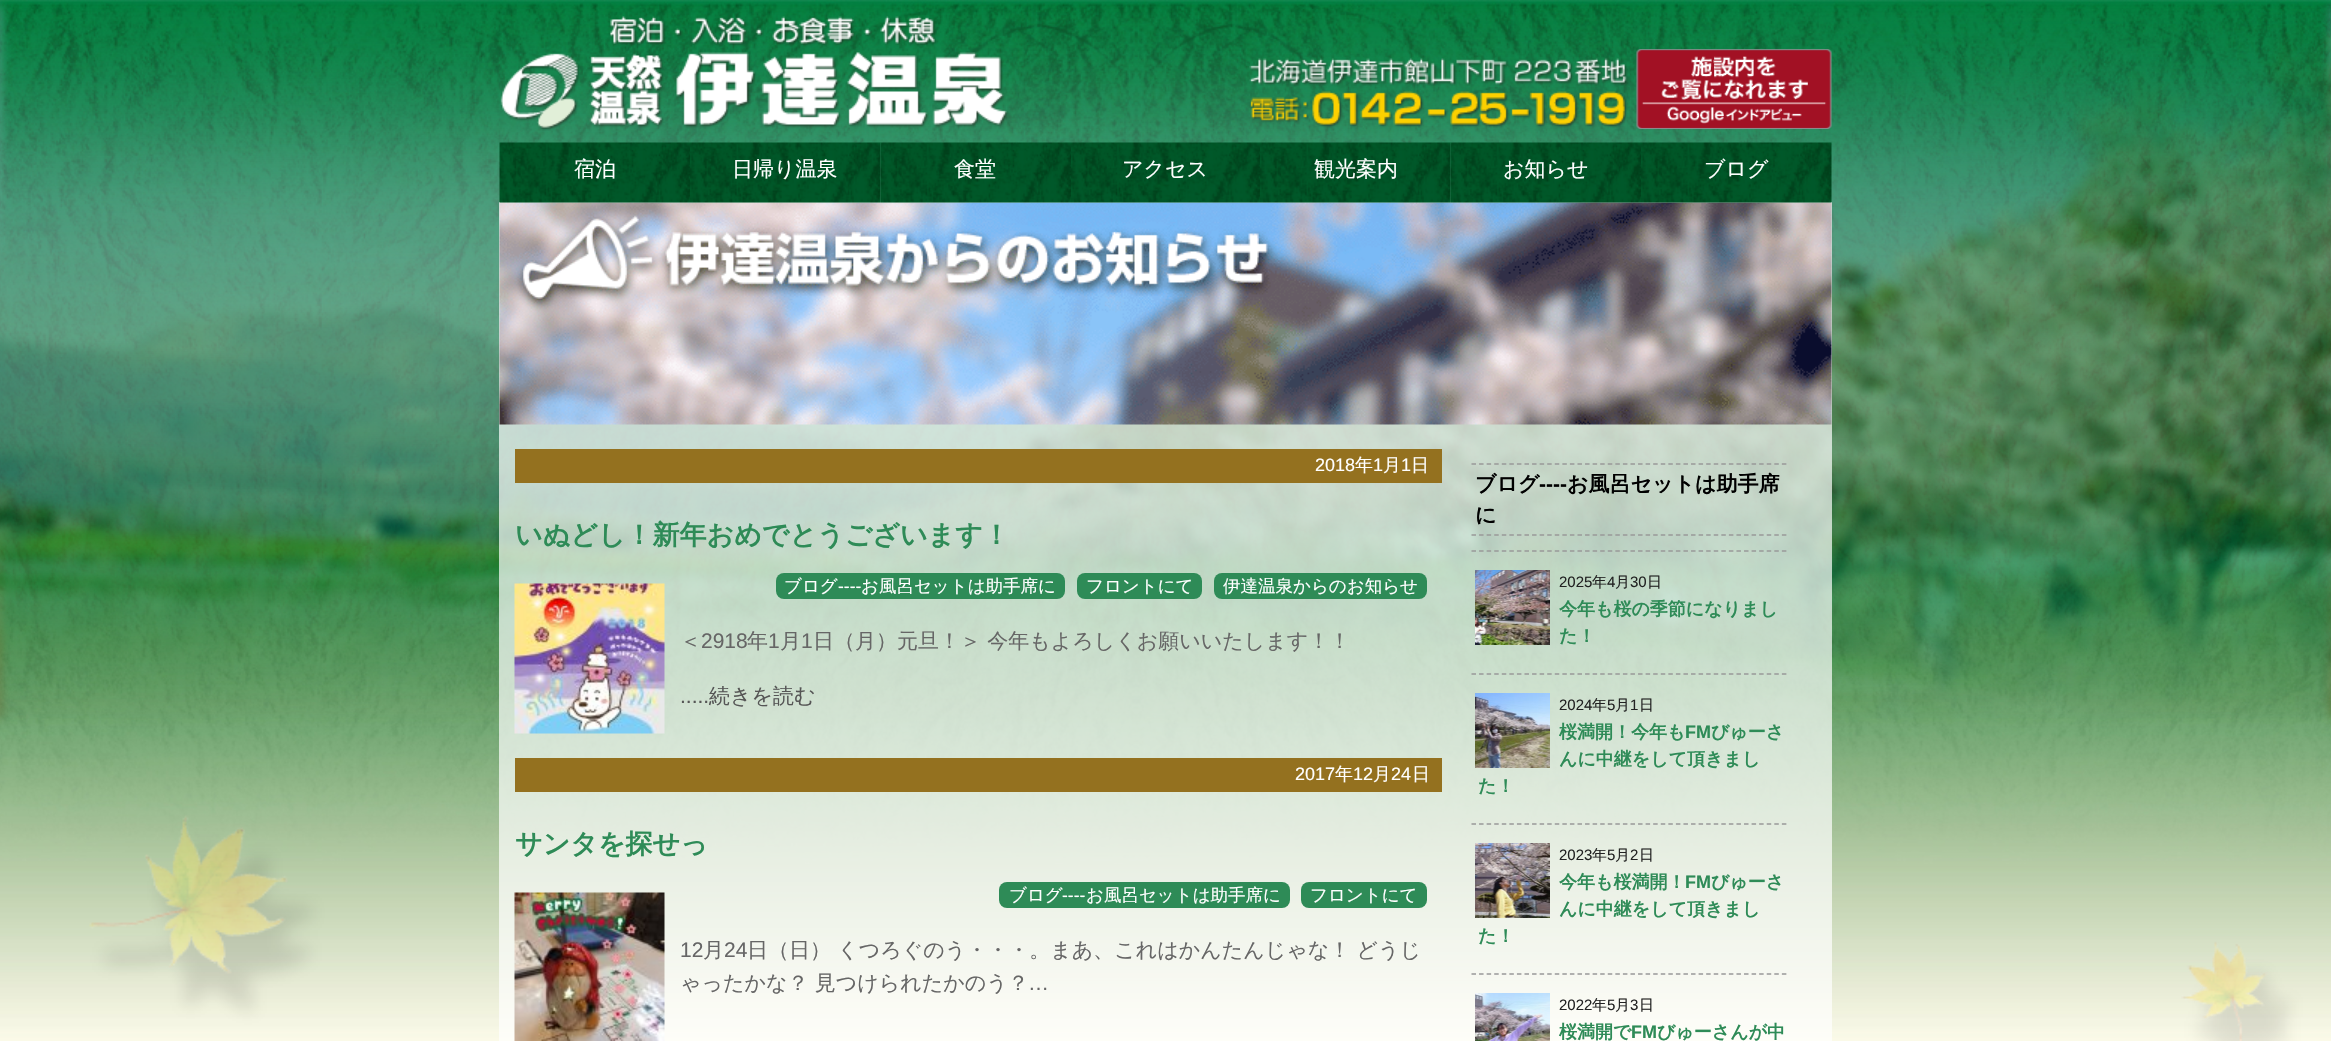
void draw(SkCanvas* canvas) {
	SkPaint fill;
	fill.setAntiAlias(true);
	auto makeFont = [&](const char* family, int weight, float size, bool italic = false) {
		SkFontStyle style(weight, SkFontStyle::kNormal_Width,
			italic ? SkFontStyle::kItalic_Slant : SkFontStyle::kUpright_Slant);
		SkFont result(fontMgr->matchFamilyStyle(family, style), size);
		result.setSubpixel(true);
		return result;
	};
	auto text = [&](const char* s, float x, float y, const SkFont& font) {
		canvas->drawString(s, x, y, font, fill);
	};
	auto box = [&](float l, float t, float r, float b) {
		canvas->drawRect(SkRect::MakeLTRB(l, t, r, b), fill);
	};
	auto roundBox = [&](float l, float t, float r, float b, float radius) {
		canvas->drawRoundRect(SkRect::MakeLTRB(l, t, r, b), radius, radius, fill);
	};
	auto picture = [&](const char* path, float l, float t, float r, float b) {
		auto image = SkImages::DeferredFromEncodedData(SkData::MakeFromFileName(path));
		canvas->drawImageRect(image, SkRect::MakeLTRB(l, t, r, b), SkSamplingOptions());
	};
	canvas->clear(0xFFFFFFFF);
	picture("image0.png", 0, 0, 2331, 1041);
	picture("image1.png", 0, 0, 2331, 1041);
	picture("image2.png", 500, 16, 1009, 131);
	picture("image3.png", 1249, 58, 1629, 128);
	picture("image4.png", 1636, 49, 1832, 129);
	fill.setColor(0xB0FFFFFF);
	box(499, 202, 1832, 1041);
	picture("image12.png", 499, 202, 1832, 425);
	picture("image5.png", 499, 142, 690, 203);
	picture("image6.png", 690, 142, 881, 203);
	picture("image7.png", 880, 142, 1071, 203);
	picture("image8.png", 1071, 142, 1260, 203);
	picture("image9.png", 1260, 142, 1451, 203);
	picture("image10.png", 1450, 142, 1641, 203);
	picture("image11.png", 1641, 142, 1832, 203);
	fill.setColor(0xFF94711F);
	box(515, 449, 1442, 483);
	picture("image13.png", 514, 583, 665, 734);
	fill.setColor(0xFF2E8B57);
	roundBox(776, 573, 1065, 599, 8);
	roundBox(1077, 573, 1202, 599, 8);
	roundBox(1214, 573, 1427, 599, 8);
	fill.setColor(0xFF94711F);
	box(515, 758, 1442, 792);
	picture("image14.png", 514, 892, 665, 1041);
	fill.setColor(0xFF2E8B57);
	roundBox(999, 882, 1290, 908, 8);
	roundBox(1301, 882, 1427, 908, 8);
	fill.setStyle(SkPaint::kStroke_Style);
	fill.setStrokeWidth(1.5f);
	fill.setColor(0xFF999999);
	fill.setPathEffect(SkDashPathEffect::Make({{4.5f, 3.07f}}, 0));
	canvas->drawPath(SkPathBuilder().moveTo(1471.5f, 464).lineTo(1786.5f, 464).detach(), fill);
	fill.setPathEffect(nullptr);
	fill.setPathEffect(SkDashPathEffect::Make({{4.5f, 3.07f}}, 0));
	canvas->drawPath(SkPathBuilder().moveTo(1471.5f, 535).lineTo(1786.5f, 535).detach(), fill);
	fill.setPathEffect(nullptr);
	fill.setPathEffect(SkDashPathEffect::Make({{4.5f, 3.07f}}, 0));
	canvas->drawPath(SkPathBuilder().moveTo(1471.5f, 551).lineTo(1786.5f, 551).detach(), fill);
	fill.setPathEffect(nullptr);
	picture("image15.png", 1475, 570, 1550, 645);
	fill.setPathEffect(SkDashPathEffect::Make({{4.5f, 3.07f}}, 0));
	canvas->drawPath(SkPathBuilder().moveTo(1471.5f, 674).lineTo(1786.5f, 674).detach(), fill);
	fill.setPathEffect(nullptr);
	picture("image16.png", 1475, 693, 1550, 768);
	fill.setPathEffect(SkDashPathEffect::Make({{4.5f, 3.07f}}, 0));
	canvas->drawPath(SkPathBuilder().moveTo(1471.5f, 824).lineTo(1786.5f, 824).detach(), fill);
	fill.setPathEffect(nullptr);
	picture("image17.png", 1475, 843, 1550, 918);
	fill.setPathEffect(SkDashPathEffect::Make({{4.5f, 3.07f}}, 0));
	canvas->drawPath(SkPathBuilder().moveTo(1471.5f, 974).lineTo(1786.5f, 974).detach(), fill);
	fill.setPathEffect(nullptr);
	picture("image18.png", 1475, 993, 1550, 1041);
	auto font1 = makeFont("WenQuanYi Zen Hei", 500, 21);
	fill.setStyle(SkPaint::kFill_Style);
	fill.setColor(0xFFFFFFFF);
	text("宿泊", 574, 176, font1);
	text("日帰り温泉", 732, 176, font1);
	text("食堂", 954, 176, font1);
	text("アクセス", 1122, 176, font1);
	text("観光案内", 1314, 176, font1);
	text("お知らせ", 1503, 176, font1);
	text("ブログ", 1704, 176, font1);
	auto font2 = makeFont("Liberation Sans", 400, 18);
	text("2018", 1315, 471, font2);
	auto font3 = makeFont("WenQuanYi Zen Hei", 500, 18);
	text("年", 1355, 471, font3);
	text("1", 1373, 471, font2);
	text("月", 1383, 471, font3);
	text("1", 1401, 471, font2);
	text("日", 1411, 471, font3);
	auto font4 = makeFont("WenQuanYi Zen Hei", 700, 27);
	fill.setColor(0xFF2E8B57);
	text("いぬどし！新年おめでとうございます！", 515, 544, font4);
	auto font5 = makeFont("WenQuanYi Zen Hei", 500, 17.5f);
	fill.setColor(0xFFFFFFFF);
	text("ブログ", 784, 592, font5);
	auto font6 = makeFont("Liberation Sans", 400, 17.5f);
	text("----", 838, 592, font6);
	text("お風呂セットは助手席に", 861, 592, font5);
	text("フロントにて", 1086, 592, font5);
	text("伊達温泉からのお知らせ", 1223, 592, font5);
	fill.setColor(0xFF666666);
	text("＜", 680, 648, font1);
	auto font7 = makeFont("Liberation Sans", 400, 21);
	text("2918", 701, 648, font7);
	text("年", 747, 648, font1);
	text("1", 768, 648, font7);
	text("月", 780, 648, font1);
	text("1", 801, 648, font7);
	text("日（月）元旦！＞ 今年もよろしくお願いいたします！！", 813, 648, font1);
	fill.setColor(0xFF555555);
	text(".....", 680, 703, font7);
	text("続きを読む", 709, 703, font1);
	fill.setColor(0xFFFFFFFF);
	text("2017", 1295, 780, font2);
	text("年", 1335, 780, font3);
	text("12", 1353, 780, font2);
	text("月", 1373, 780, font3);
	text("24", 1391, 780, font2);
	text("日", 1412, 780, font3);
	fill.setColor(0xFF2E8B57);
	text("サンタを探せっ", 515, 853, font4);
	fill.setColor(0xFFFFFFFF);
	text("ブログ", 1009, 901, font5);
	text("----", 1062, 901, font6);
	text("お風呂セットは助手席に", 1086, 901, font5);
	text("フロントにて", 1310, 901, font5);
	fill.setColor(0xFF666666);
	text("12", 680, 957, font7);
	text("月", 703, 957, font1);
	text("24", 724, 957, font7);
	text("日（日） くつろぐのう・・・。まあ、これはかんたんじゃな！ どうじ", 747, 957, font1);
	text("ゃったかな？ 見つけられたかのう？", 680, 990, font1);
	text("…", 1028, 990, font7);
	auto font8 = makeFont("WenQuanYi Zen Hei", 700, 21);
	fill.setColor(0xFF000000);
	text("ブログ", 1475, 491, font8);
	auto font9 = makeFont("Liberation Sans", 700, 21);
	text("----", 1539, 491, font9);
	text("お風呂セットは助手席", 1567, 491, font8);
	text("に", 1475, 522, font8);
	auto font10 = makeFont("Liberation Sans", 400, 15);
	fill.setColor(0xFF222222);
	text("2025", 1559, 587, font10);
	auto font11 = makeFont("WenQuanYi Zen Hei", 500, 15);
	text("年", 1592, 587, font11);
	text("4", 1607, 587, font10);
	text("月", 1615, 587, font11);
	text("30", 1630, 587, font10);
	text("日", 1647, 587, font11);
	auto font12 = makeFont("WenQuanYi Zen Hei", 700, 18);
	fill.setColor(0xFF2E8B57);
	text("今年も桜の季節になりまし", 1559, 615, font12);
	text("た！", 1559, 642, font12);
	fill.setColor(0xFF222222);
	text("2024", 1559, 710, font10);
	text("年", 1592, 710, font11);
	text("5", 1607, 710, font10);
	text("月", 1615, 710, font11);
	text("1", 1630, 710, font10);
	text("日", 1639, 710, font11);
	fill.setColor(0xFF2E8B57);
	text("桜満開！今年も", 1559, 738, font12);
	auto font13 = makeFont("Liberation Sans", 700, 18);
	text("FM", 1685, 738, font13);
	text("びゅーさ", 1711, 738, font12);
	text("んに中継をして頂きまし", 1559, 765, font12);
	text("た！", 1478, 792, font12);
	fill.setColor(0xFF222222);
	text("2023", 1559, 860, font10);
	text("年", 1592, 860, font11);
	text("5", 1607, 860, font10);
	text("月", 1615, 860, font11);
	text("2", 1630, 860, font10);
	text("日", 1639, 860, font11);
	fill.setColor(0xFF2E8B57);
	text("今年も桜満開！", 1559, 888, font12);
	text("FM", 1685, 888, font13);
	text("びゅーさ", 1711, 888, font12);
	text("んに中継をして頂きまし", 1559, 915, font12);
	text("た！", 1478, 942, font12);
	fill.setColor(0xFF222222);
	text("2022", 1559, 1010, font10);
	text("年", 1592, 1010, font11);
	text("5", 1607, 1010, font10);
	text("月", 1615, 1010, font11);
	text("3", 1630, 1010, font10);
	text("日", 1639, 1010, font11);
	fill.setColor(0xFF2E8B57);
	text("桜満開で", 1559, 1038, font12);
	text("FM", 1631, 1038, font13);
	text("びゅーさんが中", 1657, 1038, font12);
}
